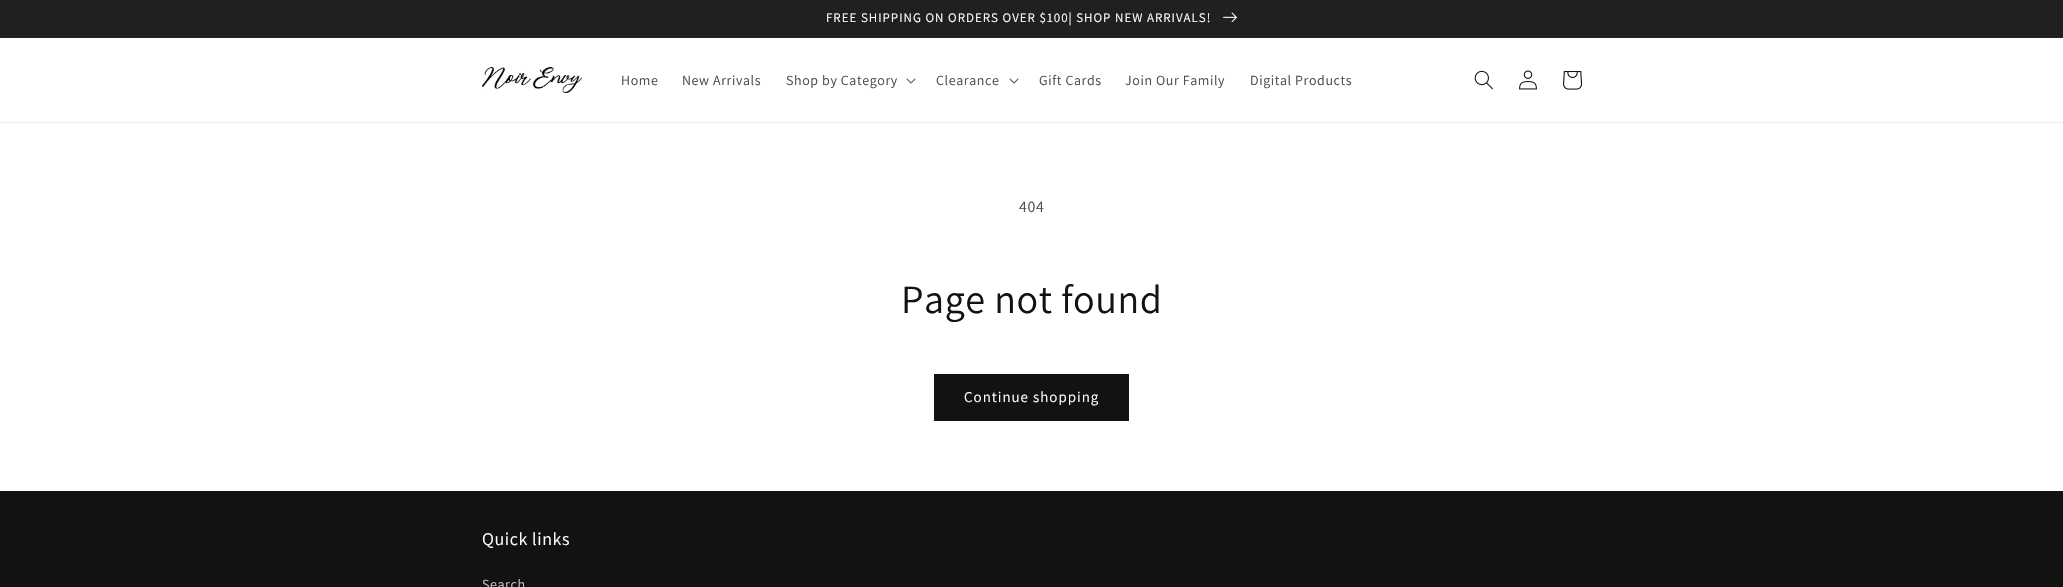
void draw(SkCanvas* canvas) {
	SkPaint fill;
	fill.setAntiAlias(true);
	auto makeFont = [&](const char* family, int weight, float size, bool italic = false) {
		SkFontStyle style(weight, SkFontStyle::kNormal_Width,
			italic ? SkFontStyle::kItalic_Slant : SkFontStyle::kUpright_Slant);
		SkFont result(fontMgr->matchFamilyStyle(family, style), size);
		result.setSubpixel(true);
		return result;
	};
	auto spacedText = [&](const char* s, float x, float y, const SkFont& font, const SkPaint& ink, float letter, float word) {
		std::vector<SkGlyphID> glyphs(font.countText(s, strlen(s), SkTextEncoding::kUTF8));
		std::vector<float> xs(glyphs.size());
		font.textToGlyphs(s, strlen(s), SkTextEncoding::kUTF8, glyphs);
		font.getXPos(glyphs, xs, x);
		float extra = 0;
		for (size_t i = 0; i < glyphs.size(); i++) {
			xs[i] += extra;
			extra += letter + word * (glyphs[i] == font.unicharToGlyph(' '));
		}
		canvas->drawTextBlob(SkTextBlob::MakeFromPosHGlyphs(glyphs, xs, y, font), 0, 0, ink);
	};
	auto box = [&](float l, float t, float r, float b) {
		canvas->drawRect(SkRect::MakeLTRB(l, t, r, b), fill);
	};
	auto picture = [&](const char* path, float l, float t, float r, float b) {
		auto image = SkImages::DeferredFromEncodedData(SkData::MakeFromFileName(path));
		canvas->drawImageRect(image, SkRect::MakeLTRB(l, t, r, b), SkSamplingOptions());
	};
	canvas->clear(0xFFFFFFFF);
	fill.setColor(0xFF252525);
	box(0, 37, 2063, 38);
	fill.setColor(0xFF202020);
	box(0, 0, 2063, 37);
	picture("image0.png", 1223, 12, 1237, 23);
	fill.setColor(0xFFECECEC);
	box(0, 122, 2063, 123);
	picture("image1.png", 482, 67, 582, 93);
	picture("image2.png", 906, 78, 916, 84);
	picture("image2.png", 1009, 78, 1019, 84);
	picture("image3.png", 1474, 70, 1493, 90);
	picture("image4.png", 1519, 70, 1537, 90);
	picture("image5.png", 1563, 71, 1583, 90);
	fill.setColor(0xFF121212);
	box(934, 374, 1129, 421);
	box(0, 491, 2063, 587);
	auto font1 = makeFont("Assistant", 400, 13);
	fill.setColor(0xFFFFFFFF);
	spacedText("FREE SHIPPING ON ORDERS OVER $100| SHOP NEW ARRIVALS!", 826, 22, font1, fill, 1, 0);
	auto font2 = makeFont("Assistant", 400, 14);
	fill.setColor(0xFF4D4D4D);
	spacedText("Home", 621, 85, font2, fill, 0.6f, 0);
	spacedText("New Arrivals", 682, 85, font2, fill, 0.6f, 0);
	spacedText("Shop by Category", 786, 85, font2, fill, 0.6f, 0);
	spacedText("Clearance", 936, 85, font2, fill, 0.6f, 0);
	spacedText("Gift Cards", 1039, 85, font2, fill, 0.6f, 0);
	spacedText("Join Our Family", 1125, 85, font2, fill, 0.6f, 0);
	spacedText("Digital Products", 1250, 85, font2, fill, 0.6f, 0);
	auto font3 = makeFont("Assistant", 400, 16);
	spacedText("404", 1019, 212, font3, fill, 0.6f, 0);
	auto font4 = makeFont("Assistant", 400, 40);
	fill.setColor(0xFF121212);
	spacedText("Page not found", 901, 313, font4, fill, 0.6f, 0);
	auto font5 = makeFont("Assistant", 400, 15);
	fill.setColor(0xFFFFFFFF);
	spacedText("Continue shopping", 964, 402, font5, fill, 1, 0);
	auto font6 = makeFont("Assistant", 400, 18);
	spacedText("Quick links", 482, 545, font6, fill, 0.6f, 0);
	fill.setColor(0xFFC4C4C4);
	spacedText("Search", 482, 589, font2, fill, 0.6f, 0);
}
